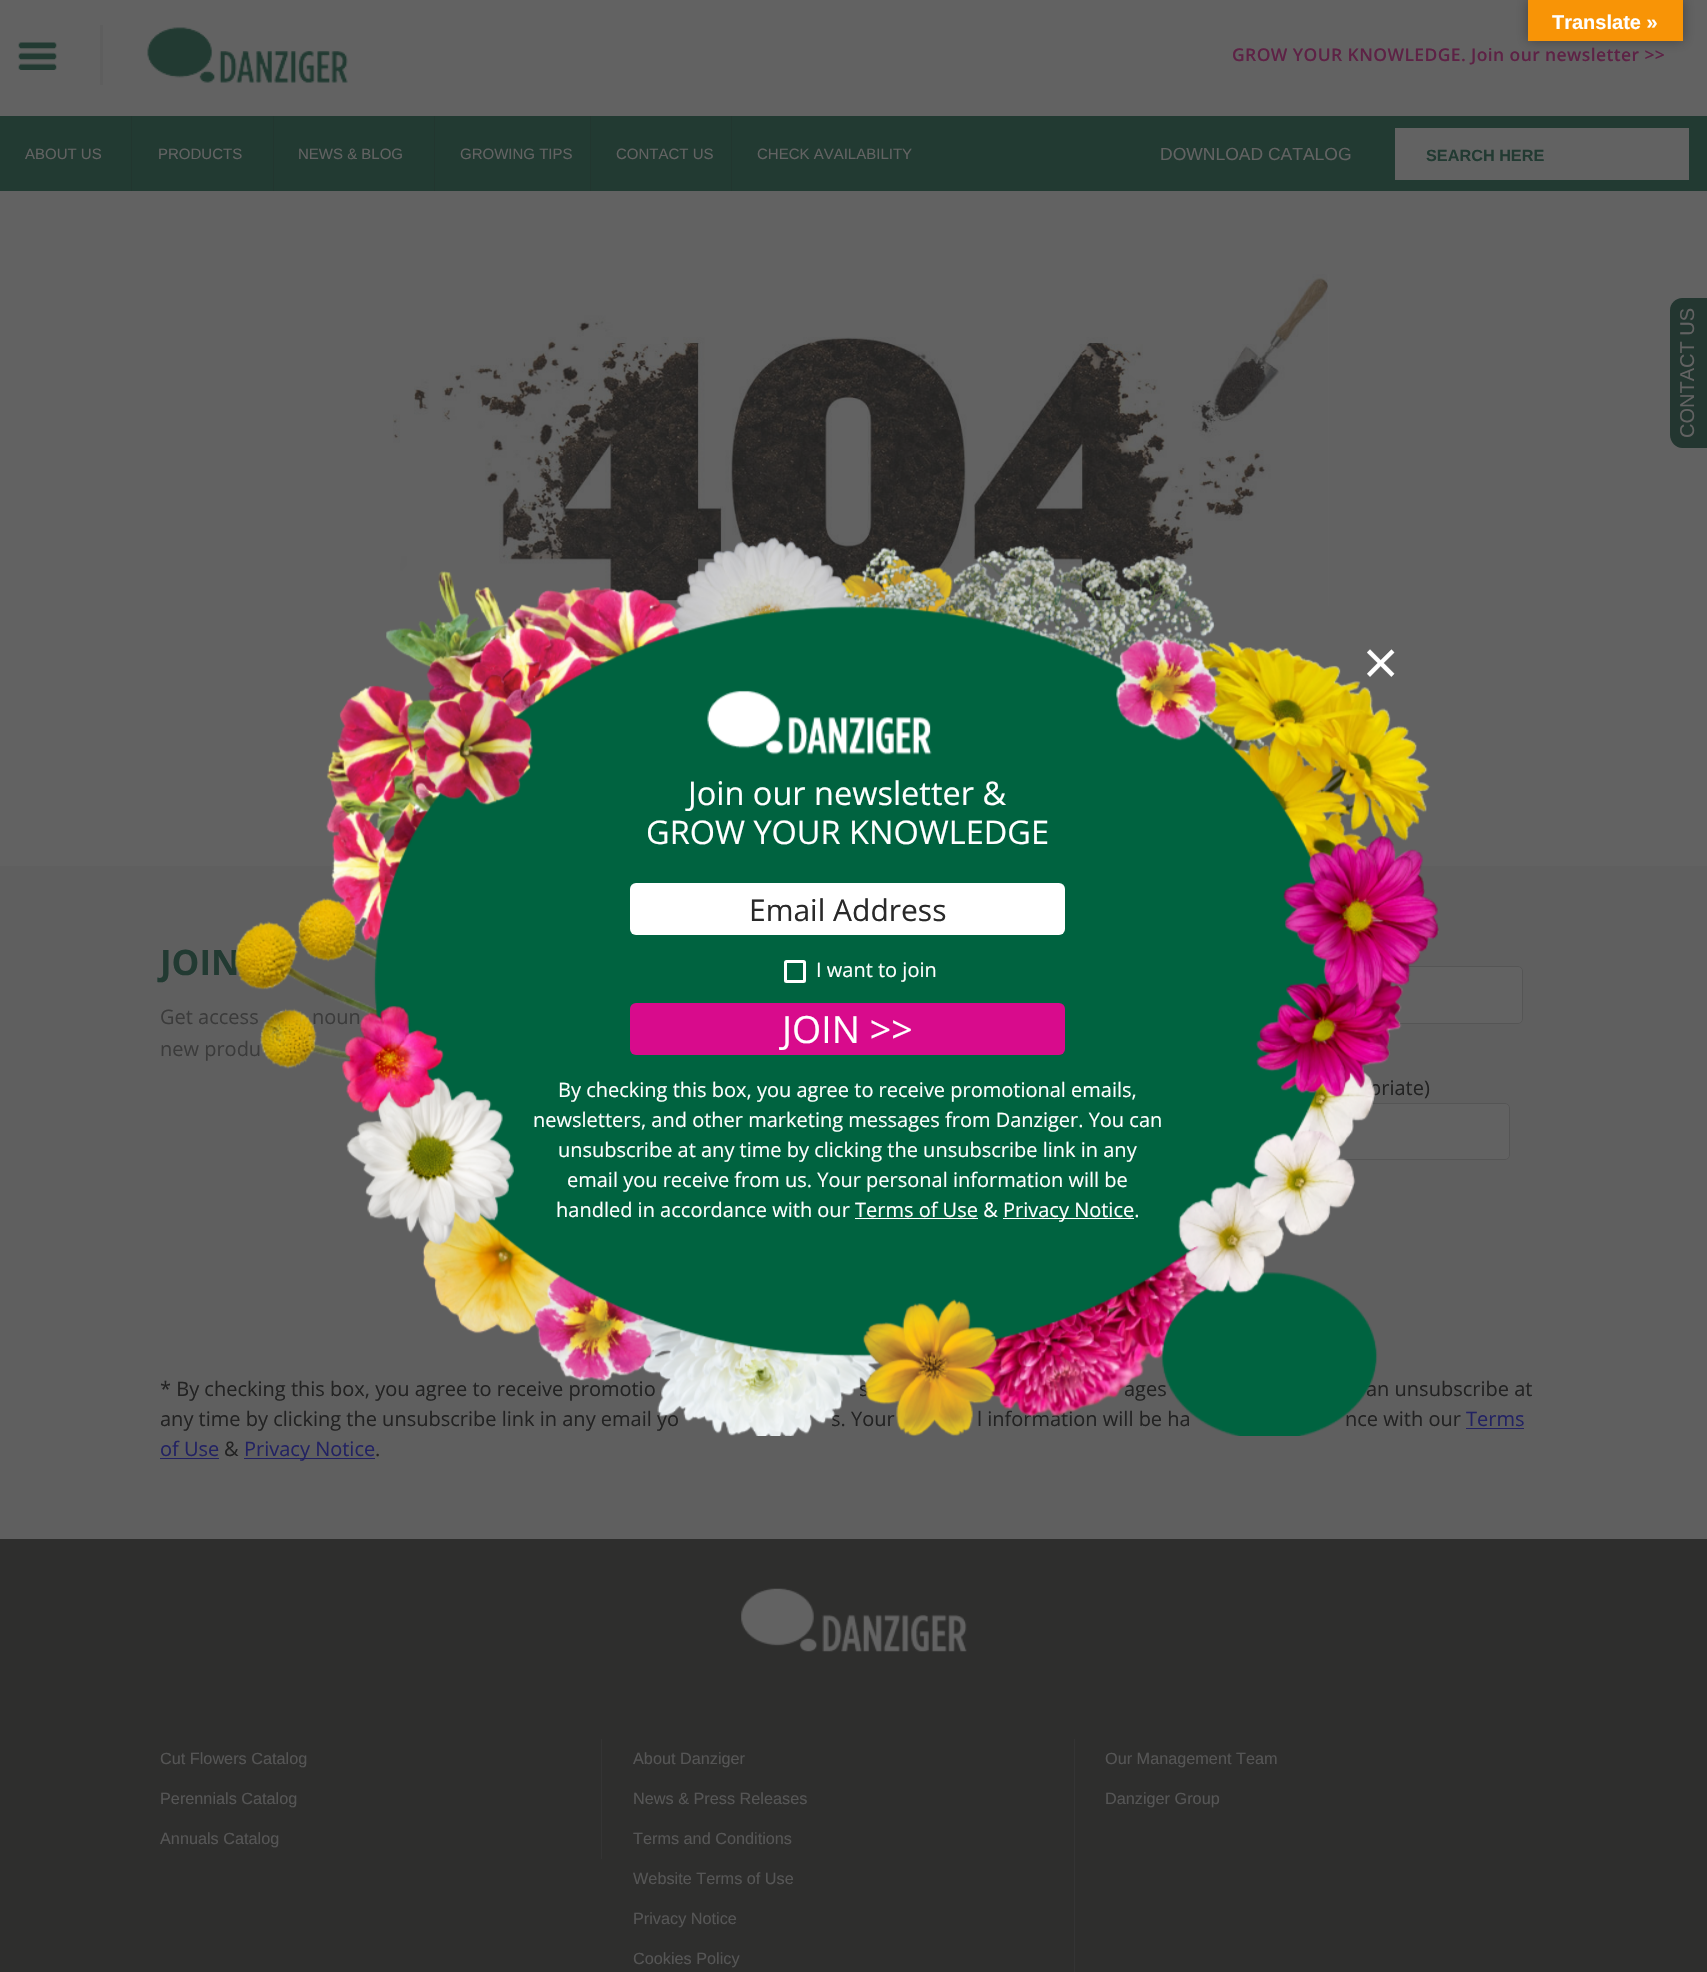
void draw(SkCanvas* canvas) {
	SkPaint fill;
	fill.setAntiAlias(true);
	auto makeFont = [&](const char* family, int weight, float size, bool italic = false) {
		SkFontStyle style(weight, SkFontStyle::kNormal_Width,
			italic ? SkFontStyle::kItalic_Slant : SkFontStyle::kUpright_Slant);
		SkFont result(fontMgr->matchFamilyStyle(family, style), size);
		result.setSubpixel(true);
		return result;
	};
	auto text = [&](const char* s, float x, float y, const SkFont& font) {
		canvas->drawString(s, x, y, font, fill);
	};
	auto spacedText = [&](const char* s, float x, float y, const SkFont& font, const SkPaint& ink, float letter, float word) {
		std::vector<SkGlyphID> glyphs(font.countText(s, strlen(s), SkTextEncoding::kUTF8));
		std::vector<float> xs(glyphs.size());
		font.textToGlyphs(s, strlen(s), SkTextEncoding::kUTF8, glyphs);
		font.getXPos(glyphs, xs, x);
		float extra = 0;
		for (size_t i = 0; i < glyphs.size(); i++) {
			xs[i] += extra;
			extra += letter + word * (glyphs[i] == font.unicharToGlyph(' '));
		}
		canvas->drawTextBlob(SkTextBlob::MakeFromPosHGlyphs(glyphs, xs, y, font), 0, 0, ink);
	};
	auto box = [&](float l, float t, float r, float b) {
		canvas->drawRect(SkRect::MakeLTRB(l, t, r, b), fill);
	};
	auto roundBox = [&](float l, float t, float r, float b, float radius) {
		canvas->drawRoundRect(SkRect::MakeLTRB(l, t, r, b), radius, radius, fill);
	};
	auto picture = [&](const char* path, float l, float t, float r, float b) {
		auto image = SkImages::DeferredFromEncodedData(SkData::MakeFromFileName(path));
		canvas->drawImageRect(image, SkRect::MakeLTRB(l, t, r, b), SkSamplingOptions());
	};
	canvas->clear(0xFF626262);
	fill.setColor(0x4D000000);
	fill.setMaskFilter(SkMaskFilter::MakeBlur(kNormal_SkBlurStyle, 5.5f));
	canvas->drawRect(SkRect::MakeLTRB(1528, 0, 1683, 41), fill);
	fill.setMaskFilter(nullptr);
	fill.setColor(0xFFF89406);
	box(1528, 0, 1683, 41);
	picture("image0.png", 18, 42, 57, 70);
	fill.setColor(0xFF5E5E5E);
	box(100, 25, 103, 85);
	picture("image1.png", 147, 27, 348, 83);
	fill.setColor(0xFF223A32);
	box(0, 116, 1707, 191);
	fill.setColor(0xFF22362F);
	box(131, 116, 132, 191);
	box(273, 116, 274, 191);
	box(434, 116, 435, 191);
	box(590, 116, 591, 191);
	box(731, 116, 732, 191);
	fill.setColor(0xFF626262);
	box(1395, 128, 1689, 180);
	picture("image2.png", 393, 274, 1329, 606);
	fill.setColor(0xFF233630);
	canvas->drawPath(SkPathBuilder().moveTo(1670, 435).lineTo(1670, 310).cubicTo(1670, 303, 1676, 298, 1682, 298).lineTo(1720, 298).lineTo(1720, 448).lineTo(1682, 448).cubicTo(1676, 448, 1670, 442, 1670, 435).close().detach(), fill);
	fill.setColor(0xFF5F5F5F);
	box(0, 866, 1707, 1539);
	fill.setColor(0xFF626262);
	canvas->drawRoundRect(SkRect::MakeLTRB(1096.5f, 966.5f, 1522.5f, 1023.5f), 4.5f, 4.5f, fill);
	fill.setStyle(SkPaint::kStroke_Style);
	fill.setStrokeWidth(1);
	fill.setColor(0xFF555555);
	canvas->drawRoundRect(SkRect::MakeLTRB(1096.5f, 966.5f, 1522.5f, 1023.5f), 4.5f, 4.5f, fill);
	fill.setStyle(SkPaint::kFill_Style);
	fill.setColor(0xFF626262);
	canvas->drawRoundRect(SkRect::MakeLTRB(1086.5f, 1103.5f, 1509.5f, 1159.5f), 4.5f, 4.5f, fill);
	fill.setStyle(SkPaint::kStroke_Style);
	fill.setColor(0xFF555555);
	canvas->drawRoundRect(SkRect::MakeLTRB(1086.5f, 1103.5f, 1509.5f, 1159.5f), 4.5f, 4.5f, fill);
	fill.setStyle(SkPaint::kFill_Style);
	fill.setColor(0xFF222262);
	box(1466, 1428, 1524, 1429);
	box(160, 1458, 219, 1459);
	box(244, 1458, 375, 1459);
	fill.setColor(0xFF2E2E2D);
	box(0, 1539, 1707, 1972);
	picture("image3.png", 741, 1588, 967, 1652);
	fill.setColor(0xFF343434);
	box(601, 1739, 602, 1859);
	box(1074, 1739, 1075, 1972);
	auto font1 = makeFont("Liberation Sans", 700, 20);
	fill.setColor(0xFFFFFFFF);
	text("Translate »", 1552, 29, font1);
	auto font2 = makeFont("Open Sans", 600, 17.5f);
	fill.setColor(0xFF5D2245);
	spacedText("GROW YOUR KNOWLEDGE. Join our newsletter >>", 1232, 61, font2, fill, 0.4f, 0);
	auto font3 = makeFont("Liberation Sans", 400, 15);
	fill.setColor(0xFF626262);
	text("ABOUT US", 25, 159, font3);
	text("PRODUCTS", 158, 159, font3);
	text("NEWS & BLOG", 298, 159, font3);
	text("GROWING TIPS", 460, 159, font3);
	text("CONTACT US", 616, 159, font3);
	text("CHECK AVAILABILITY", 757, 159, font3);
	auto font4 = makeFont("Liberation Sans", 400, 17.5f);
	text("DOWNLOAD CATALOG", 1160, 160, font4);
	auto font5 = makeFont("Liberation Sans", 700, 16.25f);
	fill.setColor(0xFF223A32);
	text("SEARCH HERE", 1426, 161, font5);
	auto font6 = makeFont("Liberation Sans", 400, 20);
	fill.setColor(0xFF626262);
	canvas->save();
	canvas->rotate(-90, 1694, 438);
	text("CONTACT US", 1694, 438, font6);
	canvas->restore();
	auto font7 = makeFont("Open Sans", 700, 35);
	fill.setColor(0xFF223A32);
	text("JOIN", 160, 975, font7);
	auto font8 = makeFont("Open Sans", 400, 20);
	fill.setColor(0xFF3B3B3B);
	text("Get access", 160, 1024, font8);
	text("noun", 312, 1024, font8);
	text("new produ", 160, 1056, font8);
	fill.setColor(0xFF222222);
	text("priate)", 1369, 1095, font8);
	text("* By checking this box, you agree to receive promotio", 160, 1396, font8);
	text("s", 859, 1396, font8);
	text("ages", 1124, 1396, font8);
	text("an unsubscribe at", 1366, 1396, font8);
	text("any time by clicking the unsubscribe link in any email yo", 160, 1426, font8);
	text("s. Your", 831, 1426, font8);
	text("l information will be ha", 977, 1426, font8);
	text("nce with our", 1345, 1426, font8);
	fill.setColor(0xFF222262);
	text("Terms", 1466, 1426, font8);
	text("of Use", 160, 1456, font8);
	fill.setColor(0xFF222222);
	text("&", 224, 1456, font8);
	fill.setColor(0xFF222262);
	text("Privacy Notice", 244, 1456, font8);
	fill.setColor(0xFF222222);
	text(".", 375, 1456, font8);
	auto font9 = makeFont("Liberation Sans", 400, 16.25f);
	fill.setColor(0xFF555555);
	text("Cut Flowers Catalog", 160, 1764, font9);
	text("Perennials Catalog", 160, 1804, font9);
	text("Annuals Catalog", 160, 1844, font9);
	text("About Danziger", 633, 1764, font9);
	text("News & Press Releases", 633, 1804, font9);
	text("Terms and Conditions", 633, 1844, font9);
	text("Website Terms of Use", 633, 1884, font9);
	text("Privacy Notice", 633, 1924, font9);
	text("Cookies Policy", 633, 1964, font9);
	text("Our Management Team", 1105, 1764, font9);
	text("Danziger Group", 1105, 1804, font9);
	picture("image4.png", 234, 537, 1439, 1436);
	auto font10 = makeFont("Open Sans", 400, 62);
	fill.setColor(0xFFFFFFFF);
	text("×", 1363, 685, font10);
	auto font11 = makeFont("Open Sans", 400, 32.5f);
	text("Join our newsletter &", 688, 805, font11);
	text("GROW YOUR KNOWLEDGE", 646, 844, font11);
	roundBox(630, 883, 1065, 935, 6);
	auto font12 = makeFont("Open Sans", 400, 30);
	fill.setColor(0xFF292929);
	text("Email Address", 749, 921, font12);
	fill.setStyle(SkPaint::kStroke_Style);
	fill.setStrokeWidth(3);
	fill.setColor(0xFFFFFFFF);
	canvas->drawRoundRect(SkRect::MakeLTRB(785.5f, 961.5f, 804.5f, 981.5f), 1, 1, fill);
	fill.setStyle(SkPaint::kFill_Style);
	text("I want to join", 816, 977, font8);
	fill.setColor(0xFFD80B8C);
	roundBox(630, 1003, 1065, 1055, 6);
	auto font13 = makeFont("Open Sans", 400, 37.5f);
	fill.setColor(0xFFFFFFFF);
	text("JOIN >>", 782, 1043, font13);
	text("By checking this box, you agree to receive promotional emails,", 558, 1097, font8);
	text("newsletters, and other marketing messages from Danziger. You can", 533, 1127, font8);
	text("unsubscribe at any time by clicking the unsubscribe link in any", 558, 1157, font8);
	text("email you receive from us. Your personal information will be", 567, 1187, font8);
	text("handled in accordance with our Terms of Use &", 556, 1217, font8);
	box(1003, 1218, 1134, 1219);
	text("Privacy Notice.", 1003, 1217, font8);
	box(855, 1218, 978, 1219);
}
